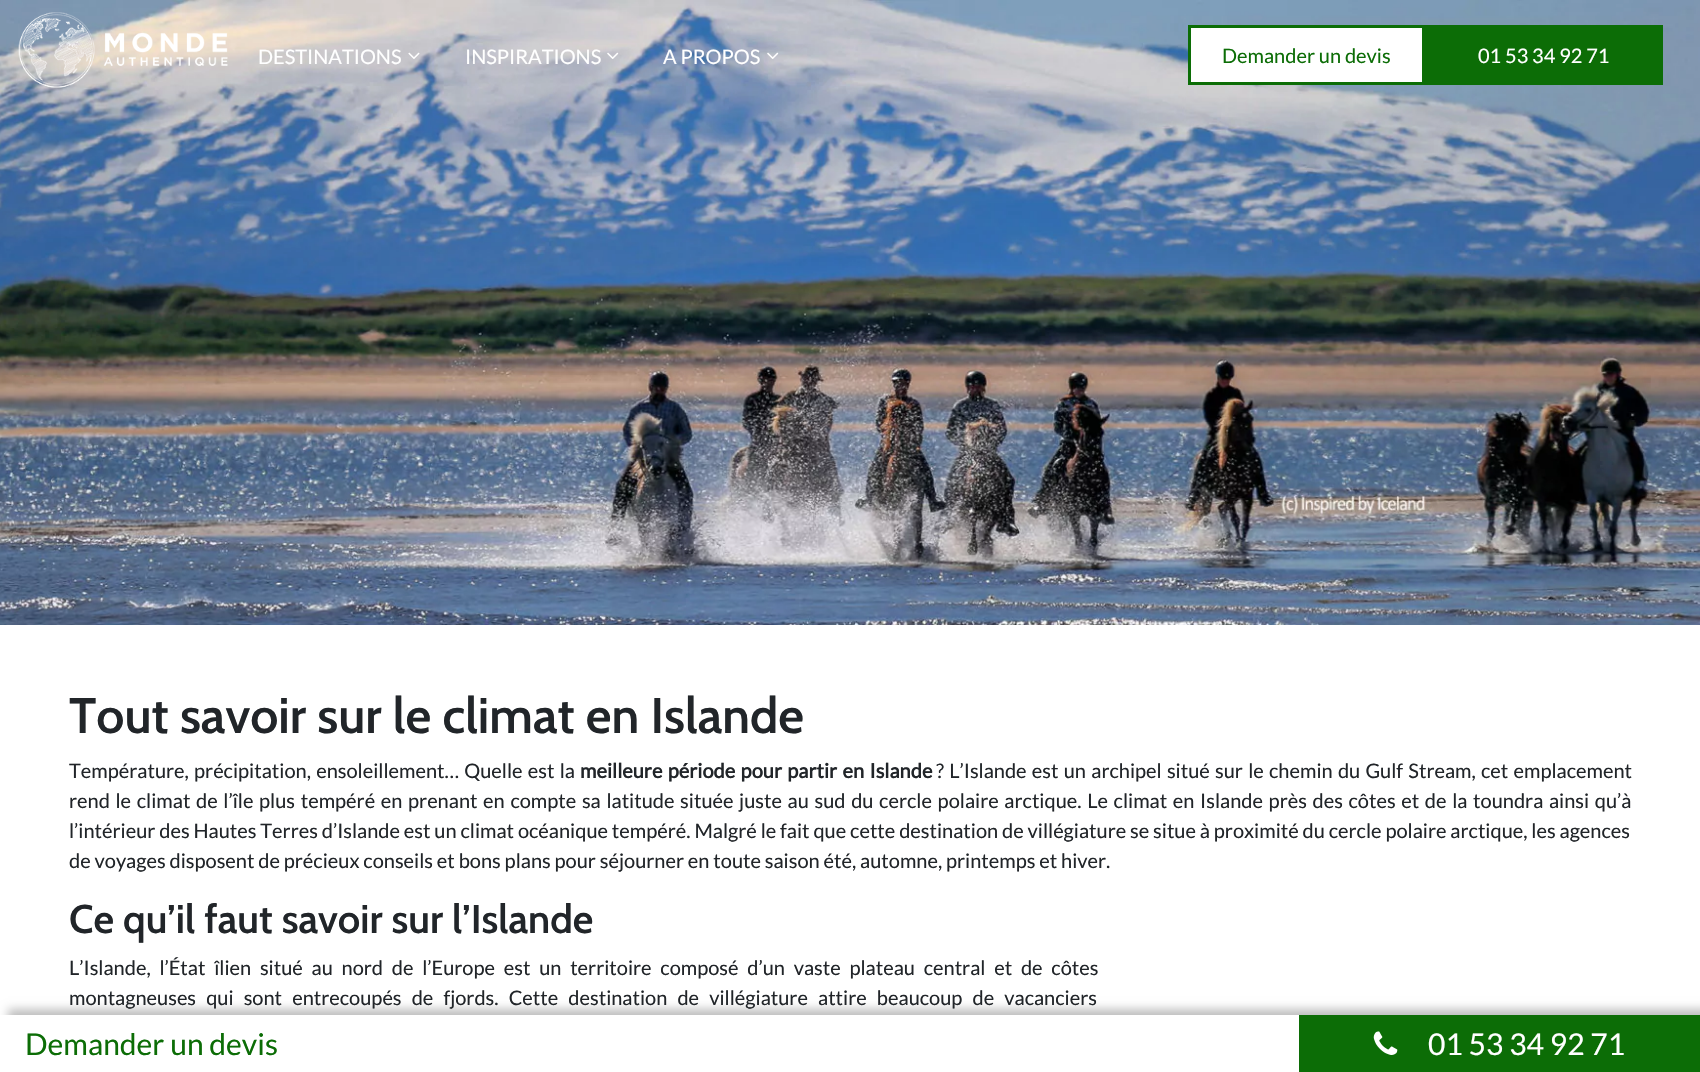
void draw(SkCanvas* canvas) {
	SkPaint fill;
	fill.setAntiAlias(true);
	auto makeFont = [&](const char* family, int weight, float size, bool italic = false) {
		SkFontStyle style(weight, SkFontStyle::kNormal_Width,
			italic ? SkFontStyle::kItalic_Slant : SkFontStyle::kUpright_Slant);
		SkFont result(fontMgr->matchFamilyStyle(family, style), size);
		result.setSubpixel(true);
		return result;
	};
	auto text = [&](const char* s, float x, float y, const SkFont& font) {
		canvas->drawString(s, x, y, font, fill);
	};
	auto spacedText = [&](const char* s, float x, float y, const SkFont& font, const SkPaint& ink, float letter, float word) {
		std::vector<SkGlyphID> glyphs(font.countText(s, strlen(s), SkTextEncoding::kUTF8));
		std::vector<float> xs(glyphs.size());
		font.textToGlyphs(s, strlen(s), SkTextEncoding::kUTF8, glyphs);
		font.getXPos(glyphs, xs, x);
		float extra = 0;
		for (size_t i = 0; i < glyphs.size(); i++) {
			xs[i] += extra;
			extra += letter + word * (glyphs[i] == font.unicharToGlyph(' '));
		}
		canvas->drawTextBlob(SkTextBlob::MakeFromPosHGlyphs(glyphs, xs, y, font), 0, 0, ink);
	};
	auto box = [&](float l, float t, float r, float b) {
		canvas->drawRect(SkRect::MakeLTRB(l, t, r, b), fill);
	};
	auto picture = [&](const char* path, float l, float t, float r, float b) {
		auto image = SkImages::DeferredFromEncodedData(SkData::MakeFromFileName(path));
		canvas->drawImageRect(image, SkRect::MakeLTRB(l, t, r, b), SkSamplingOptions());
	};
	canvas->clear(0xFFFFFFFF);
	picture("image5.png", 0, 0, 1700, 625);
	fill.setColor(0xFFFFFFFF);
	canvas->drawRect(SkRect::MakeLTRB(1189.5f, 26.5f, 1423.5f, 83.5f), fill);
	fill.setStyle(SkPaint::kStroke_Style);
	fill.setStrokeWidth(3);
	fill.setColor(0xFF0C6D06);
	canvas->drawRect(SkRect::MakeLTRB(1189.5f, 26.5f, 1423.5f, 83.5f), fill);
	fill.setStyle(SkPaint::kFill_Style);
	box(1425, 25, 1663, 85);
	picture("image0.png", 18, 12, 228, 88);
	picture("image1.png", 408, 52, 420, 59);
	picture("image2.png", 607, 52, 619, 59);
	picture("image3.png", 767, 52, 779, 59);
	fill.setColor(0x40000000);
	fill.setMaskFilter(SkMaskFilter::MakeBlur(kNormal_SkBlurStyle, 4.5f));
	canvas->drawRect(SkRect::MakeLTRB(8, 1009, 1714, 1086), fill);
	fill.setMaskFilter(nullptr);
	fill.setColor(0xFFFFFFFF);
	box(0, 1015, 1299, 1072);
	fill.setColor(0xFF0C6D06);
	box(1299, 1015, 1700, 1072);
	picture("image4.png", 1373, 1031, 1398, 1055);
	auto font1 = makeFont("Lato", 400, 20);
	text("Demander un devis", 1222, 63, font1);
	fill.setColor(0xFFFFFFFF);
	text("01 53 34 92 71", 1478, 63, font1);
	text("DESTINATIONS", 258, 64, font1);
	text("INSPIRATIONS", 465, 64, font1);
	text("A PROPOS", 663, 64, font1);
	auto font2 = makeFont("Lato", 400, 30);
	fill.setColor(0xFF0C6D06);
	text("Demander un devis", 25, 1055, font2);
	fill.setColor(0xFFFFFFFF);
	text("01 53 34 92 71", 1428, 1055, font2);
	auto font3 = makeFont("Cabin", 600, 50);
	fill.setColor(0xFF212529);
	text("Tout savoir sur le climat en Islande", 69, 733, font3);
	spacedText("Température, précipitation, ensoleillement… Quelle est la", 69, 778, font1, fill, 0, 1.4f);
	auto font4 = makeFont("Lato", 700, 20);
	spacedText("meilleure période pour partir en Islande", 580, 778, font4, fill, 0, 1.5f);
	spacedText("? L’Islande est un archipel situé sur le chemin du Gulf Stream, cet emplacement", 936, 778, font1, fill, 0, 1.4f);
	spacedText("rend le climat de l’île plus tempéré en prenant en compte sa latitude située juste au sud du cercle polaire arctique. Le climat en Islande près des côtes et de la toundra ainsi qu’à", 69, 808, font1, fill, 0, 1.8f);
	text("l’intérieur des Hautes Terres d’Islande est un climat océanique tempéré. Malgré le fait que cette destination de villégiature se situe à proximité du cercle polaire arctique, les agences", 69, 838, font1);
	text("de voyages disposent de précieux conseils et bons plans pour séjourner en toute saison été, automne, printemps et hiver.", 69, 868, font1);
	auto font5 = makeFont("Cabin", 600, 40);
	text("Ce qu’il faut savoir sur l’Islande", 69, 933, font5);
	spacedText("L’Islande, l’État îlien situé au nord de l’Europe est un territoire composé d’un vaste plateau central et de côtes", 69, 975, font1, fill, 0, 4.9f);
	spacedText("montagneuses qui sont entrecoupés de fjords. Cette destination de villégiature attire beaucoup de vacanciers", 69, 1005, font1, fill, 0, 6.25f);
}
